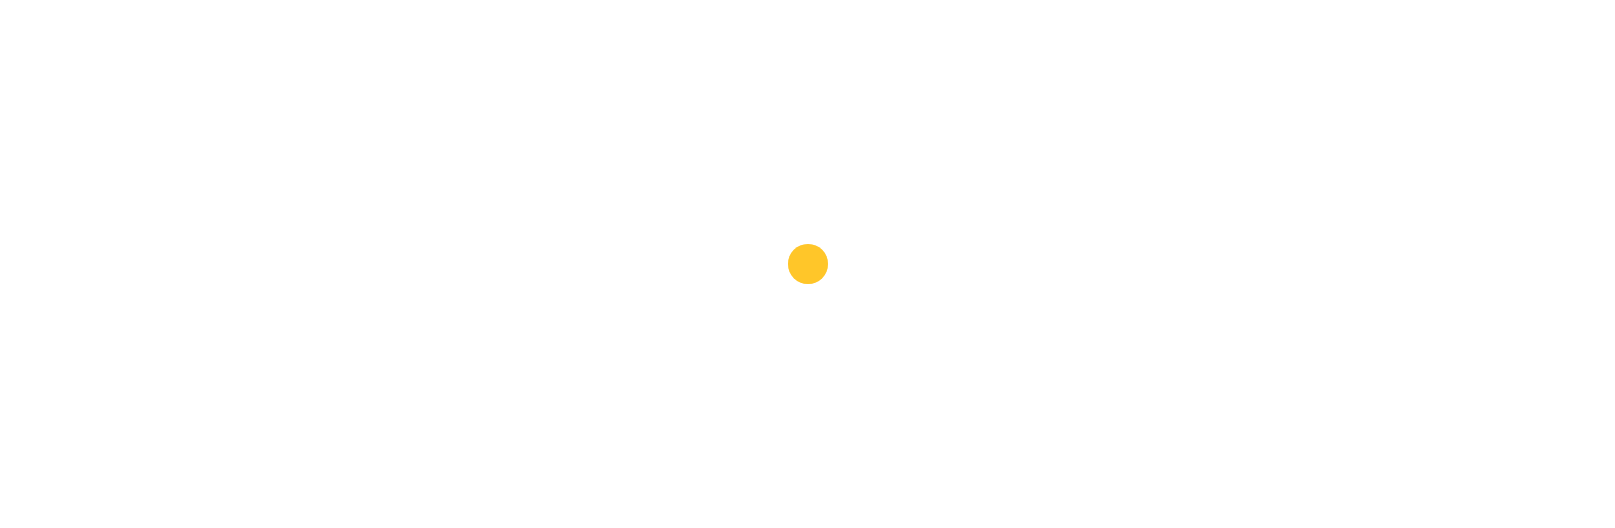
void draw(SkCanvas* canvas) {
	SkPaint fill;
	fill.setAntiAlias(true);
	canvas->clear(0xFFFFFFFF);
	fill.setColor(0xFFFFD666);
	canvas->drawCircle(808, 264, 20, fill);
	fill.setColor(0x99FFBB00);
	canvas->drawCircle(808, 264, 20, fill);
}
